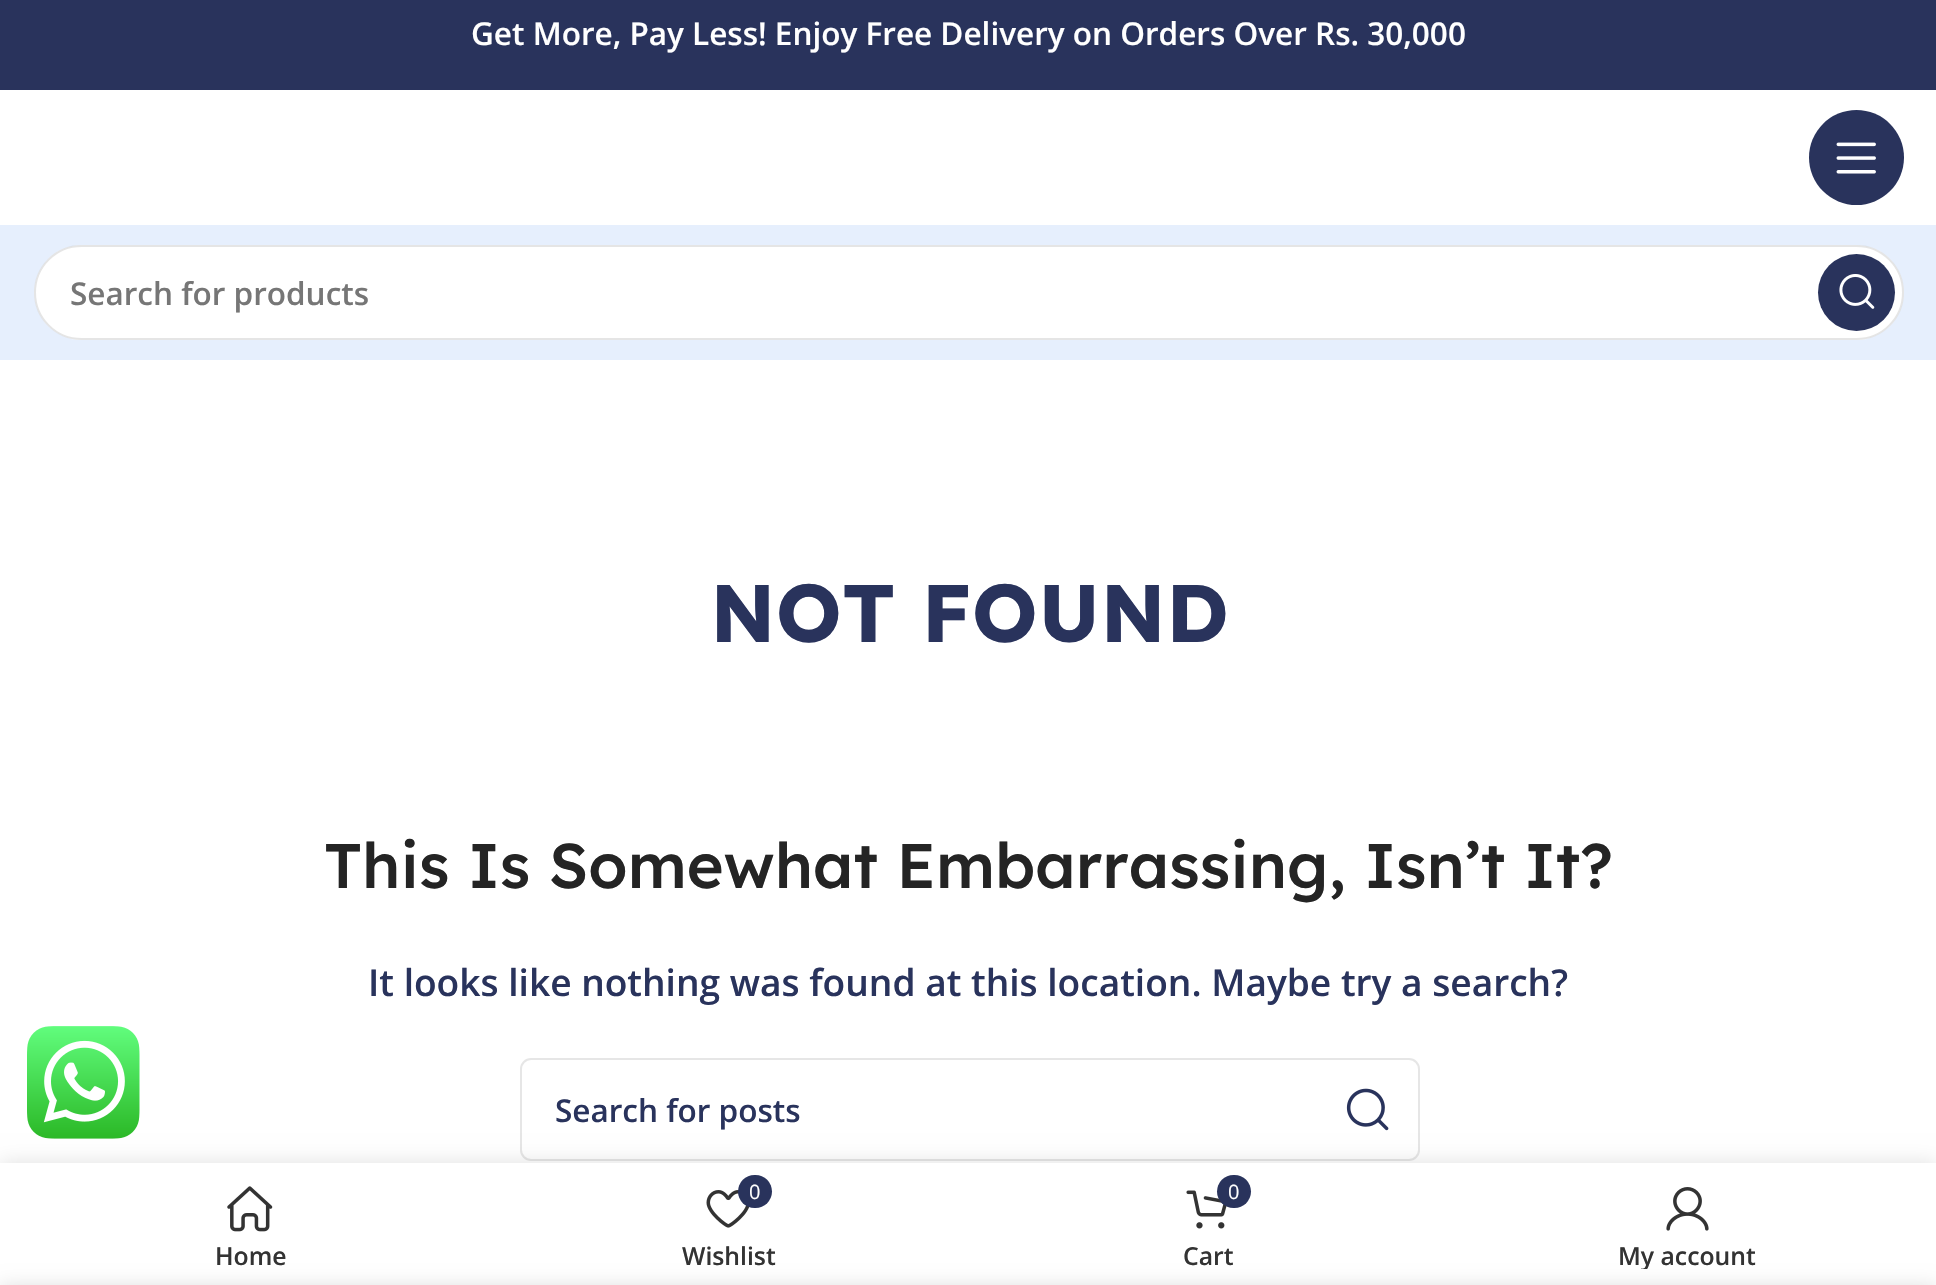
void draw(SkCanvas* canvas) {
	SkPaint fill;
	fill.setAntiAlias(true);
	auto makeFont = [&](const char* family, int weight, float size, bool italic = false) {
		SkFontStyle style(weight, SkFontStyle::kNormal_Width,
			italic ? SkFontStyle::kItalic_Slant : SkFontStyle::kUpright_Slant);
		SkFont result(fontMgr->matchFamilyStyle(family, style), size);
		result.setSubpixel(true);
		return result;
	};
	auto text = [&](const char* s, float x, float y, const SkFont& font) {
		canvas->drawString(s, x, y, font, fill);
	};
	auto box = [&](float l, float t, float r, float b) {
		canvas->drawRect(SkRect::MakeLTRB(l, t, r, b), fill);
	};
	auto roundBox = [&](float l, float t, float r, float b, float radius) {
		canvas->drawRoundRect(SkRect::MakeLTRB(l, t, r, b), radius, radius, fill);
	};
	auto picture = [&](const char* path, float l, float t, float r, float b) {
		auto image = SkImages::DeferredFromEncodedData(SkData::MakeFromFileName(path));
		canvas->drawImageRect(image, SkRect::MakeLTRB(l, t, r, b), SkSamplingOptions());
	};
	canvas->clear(0xFFFFFFFF);
	fill.setColor(0xFF29335C);
	box(0, 0, 1936, 90);
	canvas->drawCircle(1856.5f, 157.5f, 47.5f, fill);
	picture("image0.png", 1836, 142, 1876, 174);
	fill.setColor(0xFFE6EFFD);
	box(0, 225, 1936, 360);
	fill.setColor(0xFFFFFFFF);
	roundBox(34, 245, 1904, 340, 47.5f);
	fill.setStyle(SkPaint::kStroke_Style);
	fill.setStrokeWidth(2);
	fill.setColor(0x1A000000);
	canvas->drawRoundRect(SkRect::MakeLTRB(35, 246, 1903, 339), 46.5f, 46.5f, fill);
	fill.setStyle(SkPaint::kFill_Style);
	fill.setColor(0xFF29335C);
	canvas->drawCircle(1856.5f, 292.5f, 38.5f, fill);
	picture("image1.png", 1839, 274, 1875, 309);
	fill.setStyle(SkPaint::kStroke_Style);
	fill.setColor(0xFFE6E6E6);
	canvas->drawRoundRect(SkRect::MakeLTRB(521, 1059, 1419, 1160), 10, 10, fill);
	picture("image2.png", 1346, 1088, 1389, 1131);
	fill.setStyle(SkPaint::kFill_Style);
	fill.setColor(0x1F000000);
	fill.setMaskFilter(SkMaskFilter::MakeBlur(kNormal_SkBlurStyle, 10));
	canvas->drawRect(SkRect::MakeLTRB(0, 1163, 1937, 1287), fill);
	fill.setMaskFilter(nullptr);
	picture("image3.png", 27, 1026, 140, 1139);
	fill.setColor(0xFFFFFFFF);
	box(0, 1163, 1936, 1285);
	picture("image4.png", 227, 1186, 273, 1232);
	picture("image5.png", 706, 1190, 750, 1228);
	fill.setColor(0xFF29335C);
	roundBox(738, 1175, 772, 1208, 16.5f);
	picture("image6.png", 1186, 1190, 1227, 1229);
	roundBox(1217, 1175, 1251, 1208, 16.5f);
	picture("image7.png", 1666, 1187, 1709, 1231);
	fill.setColor(0x24000000);
	fill.setMaskFilter(SkMaskFilter::MakeBlur(kNormal_SkBlurStyle, 10));
	canvas->drawRect(SkRect::MakeLTRB(0, 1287, 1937, 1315), fill);
	fill.setMaskFilter(nullptr);
	auto font1 = makeFont("Open Sans", 600, 31.5f);
	fill.setColor(0xFFFFFFFF);
	text("Get More, Pay Less! Enjoy Free Delivery on Orders Over Rs. 30,000", 471, 45, font1);
	fill.setColor(0xFF767676);
	text("Search for products", 70, 305, font1);
	auto font2 = makeFont("Lexend Deca", 700, 81.5f);
	fill.setColor(0xFF29335C);
	text("NOT FOUND", 710, 642, font2);
	auto font3 = makeFont("Lexend Deca", 500, 63);
	fill.setColor(0xFF242424);
	text("This Is Somewhat Embarrassing, Isn’t It?", 324, 888, font3);
	auto font4 = makeFont("Open Sans", 600, 37.1f);
	fill.setColor(0xFF29335C);
	text("It looks like nothing was found at this location. Maybe try a search?", 368, 996, font4);
	text("Search for posts", 555, 1122, font1);
	auto font5 = makeFont("Open Sans", 600, 24.75f);
	fill.setColor(0xFF333333);
	text("Home", 215, 1265, font5);
	auto font6 = makeFont("Open Sans", 400, 20);
	fill.setColor(0xFFFFFFFF);
	text("0", 749, 1199, font6);
	fill.setColor(0xFF333333);
	text("Wishlist", 682, 1265, font5);
	fill.setColor(0xFFFFFFFF);
	text("0", 1228, 1199, font6);
	fill.setColor(0xFF333333);
	text("Cart", 1183, 1265, font5);
	canvas->save();
	canvas->clipRect(SkRect::MakeLTRB(1469, 1240, 1904, 1269));
	text("My account", 1618, 1265, font5);
	canvas->restore();
}
